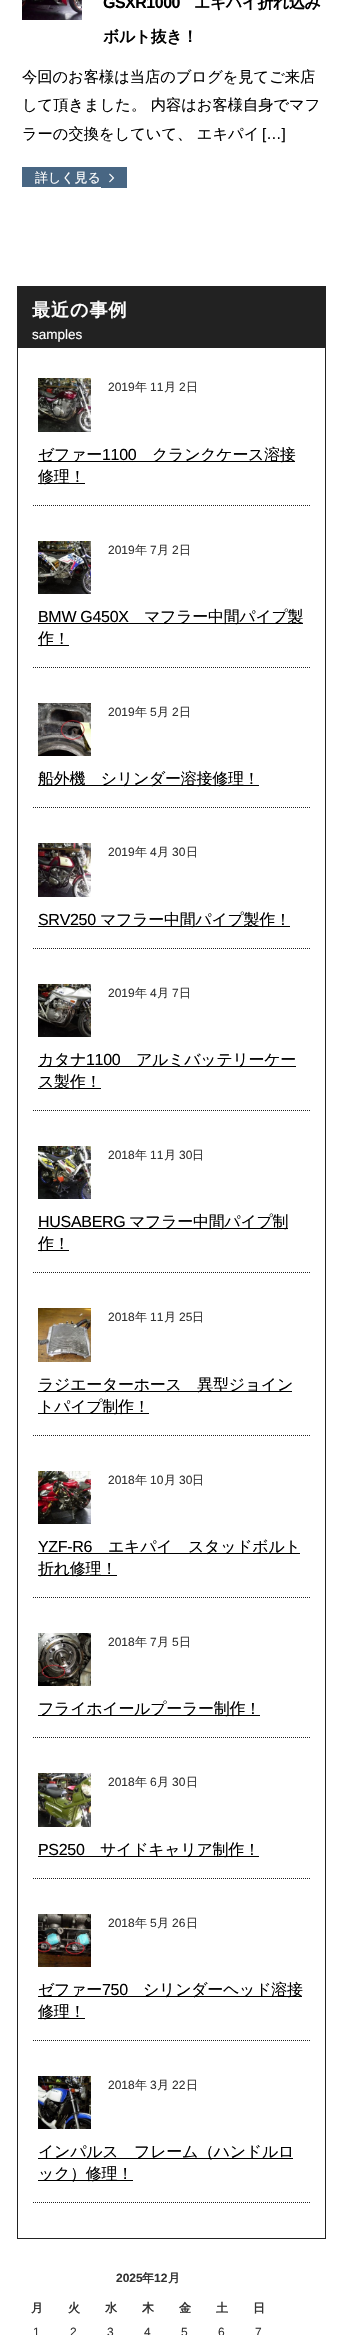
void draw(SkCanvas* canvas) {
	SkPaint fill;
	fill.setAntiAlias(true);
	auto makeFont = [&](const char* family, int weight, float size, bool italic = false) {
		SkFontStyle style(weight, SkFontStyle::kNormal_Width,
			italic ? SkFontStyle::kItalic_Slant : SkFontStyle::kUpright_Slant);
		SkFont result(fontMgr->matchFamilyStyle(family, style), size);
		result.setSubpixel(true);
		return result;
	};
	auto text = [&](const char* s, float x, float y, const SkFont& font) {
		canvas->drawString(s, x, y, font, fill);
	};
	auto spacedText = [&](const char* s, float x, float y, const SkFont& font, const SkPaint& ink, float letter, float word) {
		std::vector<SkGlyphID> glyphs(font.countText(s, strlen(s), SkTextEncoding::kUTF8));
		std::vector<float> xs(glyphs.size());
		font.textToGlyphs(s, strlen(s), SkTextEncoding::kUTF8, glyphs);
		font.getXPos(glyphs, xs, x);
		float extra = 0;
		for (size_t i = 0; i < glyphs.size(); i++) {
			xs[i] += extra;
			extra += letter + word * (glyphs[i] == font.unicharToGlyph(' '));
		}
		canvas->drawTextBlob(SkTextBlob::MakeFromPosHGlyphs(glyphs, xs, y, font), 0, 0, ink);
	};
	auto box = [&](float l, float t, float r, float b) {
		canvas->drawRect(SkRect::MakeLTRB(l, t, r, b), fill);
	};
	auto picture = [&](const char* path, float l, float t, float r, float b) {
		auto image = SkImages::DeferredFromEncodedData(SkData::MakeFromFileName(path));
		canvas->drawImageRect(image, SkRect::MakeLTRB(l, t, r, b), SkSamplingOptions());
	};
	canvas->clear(0xFFFFFFFF);
	fill.setColor(0xFF486683);
	box(22, 167, 101, 187);
	box(101, 167, 127, 188);
	picture("image0.png", 109, 173, 115, 183);
	picture("image1.png", 22, 0, 82, 20);
	fill.setColor(0xFF222222);
	box(17, 286, 326, 347);
	fill.setStyle(SkPaint::kStroke_Style);
	fill.setStrokeWidth(1);
	canvas->drawRect(SkRect::MakeLTRB(17.5f, 347.5f, 325.5f, 2238.5f), fill);
	fill.setPathEffect(SkDashPathEffect::Make({{1, 1}}, 0));
	canvas->drawPath(SkPathBuilder().moveTo(33, 505.5f).lineTo(310, 505.5f).detach(), fill);
	fill.setPathEffect(nullptr);
	picture("image2.png", 38, 378, 91, 432);
	fill.setStyle(SkPaint::kFill_Style);
	fill.setColor(0xFF000000);
	box(38, 461, 295, 462);
	box(38, 483, 85, 484);
	fill.setStyle(SkPaint::kStroke_Style);
	fill.setColor(0xFF222222);
	fill.setPathEffect(SkDashPathEffect::Make({{1, 1}}, 0));
	canvas->drawPath(SkPathBuilder().moveTo(33, 667.5f).lineTo(310, 667.5f).detach(), fill);
	fill.setPathEffect(nullptr);
	picture("image3.png", 38, 541, 91, 594);
	fill.setStyle(SkPaint::kFill_Style);
	fill.setColor(0xFF000000);
	box(38, 623, 303, 624);
	box(38, 645, 69, 646);
	fill.setStyle(SkPaint::kStroke_Style);
	fill.setColor(0xFF222222);
	fill.setPathEffect(SkDashPathEffect::Make({{1, 1}}, 0));
	canvas->drawPath(SkPathBuilder().moveTo(33, 807.5f).lineTo(310, 807.5f).detach(), fill);
	fill.setPathEffect(nullptr);
	picture("image4.png", 38, 703, 91, 756);
	fill.setStyle(SkPaint::kFill_Style);
	fill.setColor(0xFF000000);
	box(38, 785, 259, 786);
	fill.setStyle(SkPaint::kStroke_Style);
	fill.setColor(0xFF222222);
	fill.setPathEffect(SkDashPathEffect::Make({{1, 1}}, 0));
	canvas->drawPath(SkPathBuilder().moveTo(33, 948.5f).lineTo(310, 948.5f).detach(), fill);
	fill.setPathEffect(nullptr);
	picture("image5.png", 38, 843, 91, 897);
	fill.setStyle(SkPaint::kFill_Style);
	fill.setColor(0xFF000000);
	box(38, 926, 290, 927);
	fill.setStyle(SkPaint::kStroke_Style);
	fill.setColor(0xFF222222);
	fill.setPathEffect(SkDashPathEffect::Make({{1, 1}}, 0));
	canvas->drawPath(SkPathBuilder().moveTo(33, 1110.5f).lineTo(310, 1110.5f).detach(), fill);
	fill.setPathEffect(nullptr);
	picture("image6.png", 38, 984, 91, 1037);
	fill.setStyle(SkPaint::kFill_Style);
	fill.setColor(0xFF000000);
	box(38, 1066, 296, 1067);
	box(38, 1088, 101, 1089);
	fill.setStyle(SkPaint::kStroke_Style);
	fill.setColor(0xFF222222);
	fill.setPathEffect(SkDashPathEffect::Make({{1, 1}}, 0));
	canvas->drawPath(SkPathBuilder().moveTo(33, 1272.5f).lineTo(310, 1272.5f).detach(), fill);
	fill.setPathEffect(nullptr);
	picture("image7.png", 38, 1146, 91, 1199);
	fill.setStyle(SkPaint::kFill_Style);
	fill.setColor(0xFF000000);
	box(38, 1228, 288, 1229);
	box(38, 1250, 69, 1251);
	fill.setStyle(SkPaint::kStroke_Style);
	fill.setColor(0xFF222222);
	fill.setPathEffect(SkDashPathEffect::Make({{1, 1}}, 0));
	canvas->drawPath(SkPathBuilder().moveTo(33, 1435.5f).lineTo(310, 1435.5f).detach(), fill);
	fill.setPathEffect(nullptr);
	picture("image8.png", 38, 1308, 91, 1362);
	fill.setStyle(SkPaint::kFill_Style);
	fill.setColor(0xFF000000);
	box(38, 1391, 292, 1392);
	box(38, 1413, 149, 1414);
	fill.setStyle(SkPaint::kStroke_Style);
	fill.setColor(0xFF222222);
	fill.setPathEffect(SkDashPathEffect::Make({{1, 1}}, 0));
	canvas->drawPath(SkPathBuilder().moveTo(33, 1597.5f).lineTo(310, 1597.5f).detach(), fill);
	fill.setPathEffect(nullptr);
	picture("image9.png", 38, 1471, 91, 1524);
	fill.setStyle(SkPaint::kFill_Style);
	fill.setColor(0xFF000000);
	box(38, 1553, 300, 1554);
	box(38, 1575, 117, 1576);
	fill.setStyle(SkPaint::kStroke_Style);
	fill.setColor(0xFF222222);
	fill.setPathEffect(SkDashPathEffect::Make({{1, 1}}, 0));
	canvas->drawPath(SkPathBuilder().moveTo(33, 1737.5f).lineTo(310, 1737.5f).detach(), fill);
	fill.setPathEffect(nullptr);
	picture("image10.png", 38, 1633, 91, 1686);
	fill.setStyle(SkPaint::kFill_Style);
	fill.setColor(0xFF000000);
	box(38, 1715, 260, 1716);
	fill.setStyle(SkPaint::kStroke_Style);
	fill.setColor(0xFF222222);
	fill.setPathEffect(SkDashPathEffect::Make({{1, 1}}, 0));
	canvas->drawPath(SkPathBuilder().moveTo(33, 1878.5f).lineTo(310, 1878.5f).detach(), fill);
	fill.setPathEffect(nullptr);
	picture("image11.png", 38, 1773, 91, 1827);
	fill.setStyle(SkPaint::kFill_Style);
	fill.setColor(0xFF000000);
	box(38, 1856, 259, 1857);
	fill.setStyle(SkPaint::kStroke_Style);
	fill.setColor(0xFF222222);
	fill.setPathEffect(SkDashPathEffect::Make({{1, 1}}, 0));
	canvas->drawPath(SkPathBuilder().moveTo(33, 2040.5f).lineTo(310, 2040.5f).detach(), fill);
	fill.setPathEffect(nullptr);
	picture("image12.png", 38, 1914, 91, 1967);
	fill.setStyle(SkPaint::kFill_Style);
	fill.setColor(0xFF000000);
	box(38, 1996, 302, 1997);
	box(38, 2018, 85, 2019);
	fill.setStyle(SkPaint::kStroke_Style);
	fill.setColor(0xFF222222);
	fill.setPathEffect(SkDashPathEffect::Make({{1, 1}}, 0));
	canvas->drawPath(SkPathBuilder().moveTo(33, 2202.5f).lineTo(310, 2202.5f).detach(), fill);
	fill.setPathEffect(nullptr);
	picture("image13.png", 38, 2076, 91, 2129);
	fill.setStyle(SkPaint::kFill_Style);
	fill.setColor(0xFF000000);
	box(38, 2158, 293, 2159);
	box(38, 2180, 133, 2181);
	auto font1 = makeFont("Liberation Sans", 700, 16);
	spacedText("GSXR1000", 103, 8, font1, fill, -0.5f, 0);
	auto font2 = makeFont("WenQuanYi Zen Hei", 700, 16);
	spacedText("エキパイ折れ込み", 194, 8, font2, fill, -0.5f, 0);
	spacedText("ボルト抜き！", 103, 42, font2, fill, -0.5f, 0);
	auto font3 = makeFont("WenQuanYi Zen Hei", 500, 15.25f);
	text("今回のお客様は当店のブログを見てご来店", 22, 82, font3);
	text("して頂きました。 内容はお客様自身でマフ", 22, 110, font3);
	text("ラーの交換をしていて、 エキパイ", 22, 139, font3);
	auto font4 = makeFont("Liberation Sans", 400, 15.25f);
	text("[…]", 262, 139, font4);
	auto font5 = makeFont("WenQuanYi Zen Hei", 500, 13);
	fill.setColor(0xFFFFFFFF);
	text("詳しく見る", 35, 182, font5);
	auto font6 = makeFont("WenQuanYi Zen Hei", 700, 18);
	spacedText("最近の事例", 32, 316, font6, fill, 1, 0);
	auto font7 = makeFont("Liberation Sans", 400, 13.5f);
	text("samples", 32, 339, font7);
	auto font8 = makeFont("Liberation Sans", 400, 12);
	fill.setColor(0xFF333333);
	text("2019", 108, 391, font8);
	auto font9 = makeFont("WenQuanYi Zen Hei", 500, 12);
	text("年", 135, 391, font9);
	text("11", 150, 391, font8);
	text("月", 164, 391, font9);
	text("2", 179, 391, font8);
	text("日", 186, 391, font9);
	auto font10 = makeFont("WenQuanYi Zen Hei", 500, 16);
	fill.setColor(0xFF000000);
	spacedText("ゼファー", 38, 460, font10, fill, -0.3f, 0);
	auto font11 = makeFont("Liberation Sans", 400, 16);
	spacedText("1100", 102, 460, font11, fill, -0.3f, 0);
	spacedText("クランクケース溶接", 152, 460, font10, fill, -0.3f, 0);
	spacedText("修理！", 38, 482, font10, fill, -0.3f, 0);
	fill.setColor(0xFF333333);
	text("2019", 108, 554, font8);
	text("年", 135, 554, font9);
	text("7", 150, 554, font8);
	text("月", 157, 554, font9);
	text("2", 172, 554, font8);
	text("日", 179, 554, font9);
	fill.setColor(0xFF000000);
	spacedText("BMW G450X", 38, 622, font11, fill, -0.3f, 0);
	spacedText("マフラー中間パイプ製", 144, 622, font10, fill, -0.3f, 0);
	spacedText("作！", 38, 644, font10, fill, -0.3f, 0);
	fill.setColor(0xFF333333);
	text("2019", 108, 716, font8);
	text("年", 135, 716, font9);
	text("5", 150, 716, font8);
	text("月", 157, 716, font9);
	text("2", 172, 716, font8);
	text("日", 179, 716, font9);
	fill.setColor(0xFF000000);
	spacedText("船外機　シリンダー溶接修理！", 38, 784, font10, fill, -0.3f, 0);
	fill.setColor(0xFF333333);
	text("2019", 108, 856, font8);
	text("年", 135, 856, font9);
	text("4", 150, 856, font8);
	text("月", 157, 856, font9);
	text("30", 172, 856, font8);
	text("日", 186, 856, font9);
	fill.setColor(0xFF000000);
	spacedText("SRV250", 38, 925, font11, fill, -0.3f, 0);
	spacedText("マフラー中間パイプ製作！", 100, 925, font10, fill, -0.3f, 0);
	fill.setColor(0xFF333333);
	text("2019", 108, 997, font8);
	text("年", 135, 997, font9);
	text("4", 150, 997, font8);
	text("月", 157, 997, font9);
	text("7", 172, 997, font8);
	text("日", 179, 997, font9);
	fill.setColor(0xFF000000);
	spacedText("カタナ", 38, 1065, font10, fill, -0.3f, 0);
	spacedText("1100", 86, 1065, font11, fill, -0.3f, 0);
	spacedText("アルミバッテリーケー", 136, 1065, font10, fill, -0.3f, 0);
	spacedText("ス製作！", 38, 1087, font10, fill, -0.3f, 0);
	fill.setColor(0xFF333333);
	text("2018", 108, 1159, font8);
	text("年", 135, 1159, font9);
	text("11", 150, 1159, font8);
	text("月", 164, 1159, font9);
	text("30", 179, 1159, font8);
	text("日", 192, 1159, font9);
	fill.setColor(0xFF000000);
	spacedText("HUSABERG", 38, 1227, font11, fill, -0.3f, 0);
	spacedText("マフラー中間パイプ制", 129, 1227, font10, fill, -0.3f, 0);
	spacedText("作！", 38, 1249, font10, fill, -0.3f, 0);
	fill.setColor(0xFF333333);
	text("2018", 108, 1321, font8);
	text("年", 135, 1321, font9);
	text("11", 150, 1321, font8);
	text("月", 164, 1321, font9);
	text("25", 179, 1321, font8);
	text("日", 192, 1321, font9);
	fill.setColor(0xFF000000);
	spacedText("ラジエーターホース　異型ジョイン", 38, 1390, font10, fill, -0.3f, 0);
	spacedText("トパイプ制作！", 38, 1412, font10, fill, -0.3f, 0);
	fill.setColor(0xFF333333);
	text("2018", 108, 1484, font8);
	text("年", 135, 1484, font9);
	text("10", 150, 1484, font8);
	text("月", 164, 1484, font9);
	text("30", 179, 1484, font8);
	text("日", 192, 1484, font9);
	fill.setColor(0xFF000000);
	spacedText("YZF-R6", 38, 1552, font11, fill, -0.3f, 0);
	spacedText("エキパイ　スタッドボルト", 108, 1552, font10, fill, -0.3f, 0);
	spacedText("折れ修理！", 38, 1574, font10, fill, -0.3f, 0);
	fill.setColor(0xFF333333);
	text("2018", 108, 1646, font8);
	text("年", 135, 1646, font9);
	text("7", 150, 1646, font8);
	text("月", 157, 1646, font9);
	text("5", 172, 1646, font8);
	text("日", 179, 1646, font9);
	fill.setColor(0xFF000000);
	spacedText("フライホイールプーラー制作！", 38, 1714, font10, fill, -0.3f, 0);
	fill.setColor(0xFF333333);
	text("2018", 108, 1786, font8);
	text("年", 135, 1786, font9);
	text("6", 150, 1786, font8);
	text("月", 157, 1786, font9);
	text("30", 172, 1786, font8);
	text("日", 186, 1786, font9);
	fill.setColor(0xFF000000);
	spacedText("PS250", 38, 1855, font11, fill, -0.3f, 0);
	spacedText("サイドキャリア制作！", 100, 1855, font10, fill, -0.3f, 0);
	fill.setColor(0xFF333333);
	text("2018", 108, 1927, font8);
	text("年", 135, 1927, font9);
	text("5", 150, 1927, font8);
	text("月", 157, 1927, font9);
	text("26", 172, 1927, font8);
	text("日", 186, 1927, font9);
	fill.setColor(0xFF000000);
	spacedText("ゼファー", 38, 1995, font10, fill, -0.3f, 0);
	spacedText("750", 102, 1995, font11, fill, -0.3f, 0);
	spacedText("シリンダーヘッド溶接", 143, 1995, font10, fill, -0.3f, 0);
	spacedText("修理！", 38, 2017, font10, fill, -0.3f, 0);
	fill.setColor(0xFF333333);
	text("2018", 108, 2089, font8);
	text("年", 135, 2089, font9);
	text("3", 150, 2089, font8);
	text("月", 157, 2089, font9);
	text("22", 172, 2089, font8);
	text("日", 186, 2089, font9);
	fill.setColor(0xFF000000);
	spacedText("インパルス　フレーム（ハンドルロ", 38, 2157, font10, fill, -0.3f, 0);
	spacedText("ック）修理！", 38, 2179, font10, fill, -0.3f, 0);
	auto font12 = makeFont("Liberation Sans", 700, 12);
	fill.setColor(0xFF333333);
	text("2025", 116, 2282, font12);
	auto font13 = makeFont("WenQuanYi Zen Hei", 700, 12);
	text("年", 142, 2282, font13);
	text("12", 154, 2282, font12);
	text("月", 168, 2282, font13);
	text("月", 31, 2312, font13);
	text("火", 68, 2312, font13);
	text("水", 105, 2312, font13);
	text("木", 142, 2312, font13);
	text("金", 179, 2312, font13);
	text("土", 216, 2312, font13);
	text("日", 253, 2312, font13);
	text("1", 33, 2336, font8);
	text("2", 70, 2336, font8);
	text("3", 107, 2336, font8);
	text("4", 144, 2336, font8);
	text("5", 181, 2336, font8);
	text("6", 218, 2336, font8);
	text("7", 255, 2336, font8);
}
